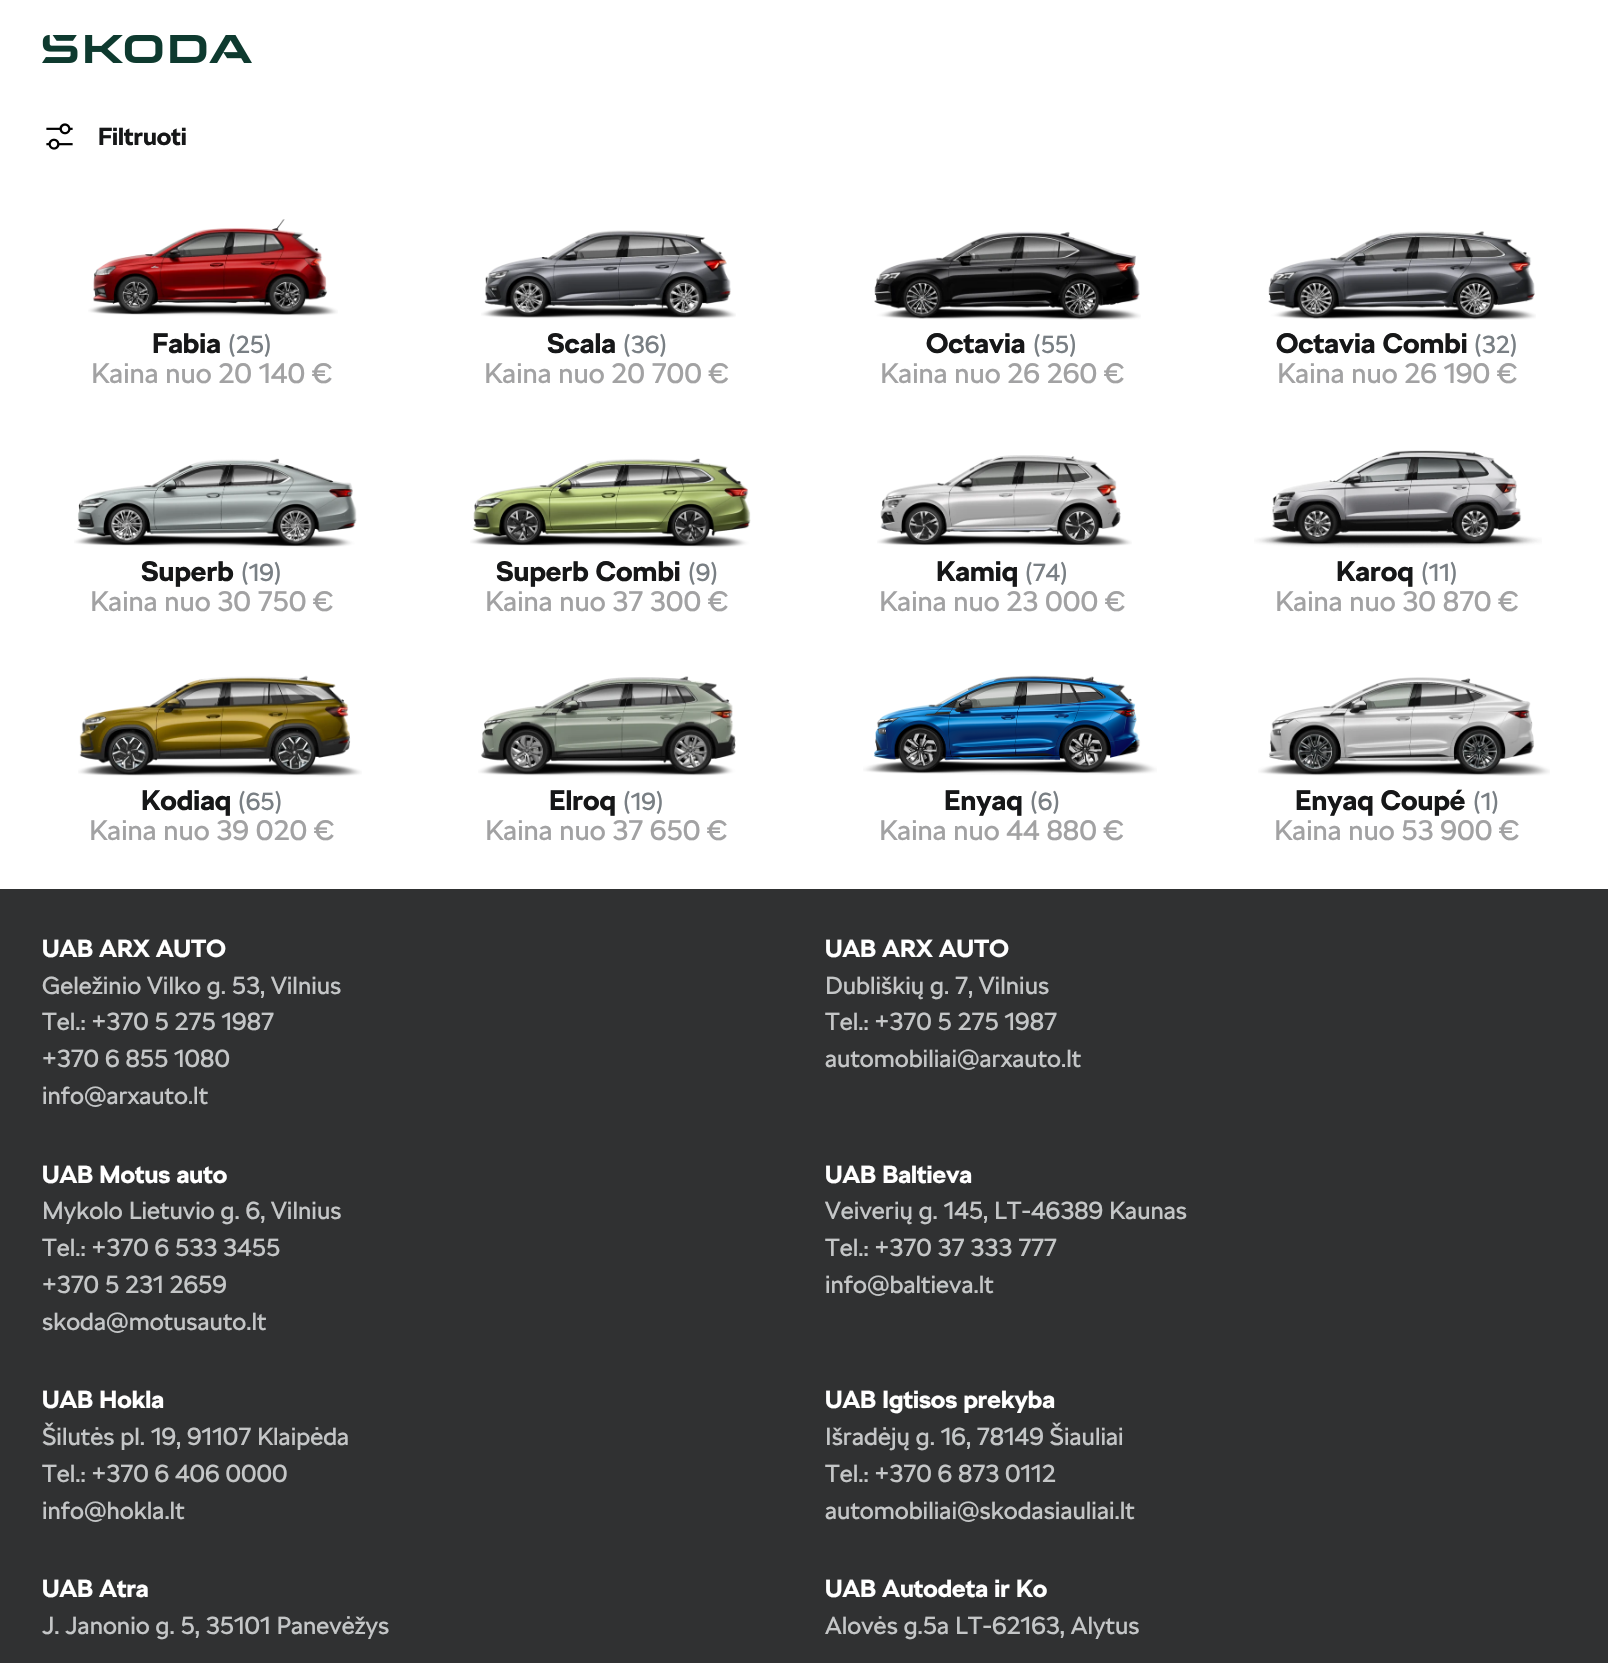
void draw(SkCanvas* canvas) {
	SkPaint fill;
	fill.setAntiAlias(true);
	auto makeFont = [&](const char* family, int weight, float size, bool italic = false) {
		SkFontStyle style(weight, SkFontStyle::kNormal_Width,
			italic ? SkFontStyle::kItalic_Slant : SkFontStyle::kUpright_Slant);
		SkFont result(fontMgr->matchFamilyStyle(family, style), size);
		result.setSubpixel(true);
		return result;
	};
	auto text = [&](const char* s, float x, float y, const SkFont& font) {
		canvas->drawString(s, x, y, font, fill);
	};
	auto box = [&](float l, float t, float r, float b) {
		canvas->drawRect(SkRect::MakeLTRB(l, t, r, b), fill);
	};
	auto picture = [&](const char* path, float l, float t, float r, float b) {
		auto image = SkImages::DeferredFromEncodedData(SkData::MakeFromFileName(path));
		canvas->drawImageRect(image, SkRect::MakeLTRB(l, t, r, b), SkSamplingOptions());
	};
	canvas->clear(0xFFFFFFFF);
	picture("image0.png", 42, 35, 252, 63);
	picture("image1.png", 46, 123, 73, 150);
	picture("image2.png", 88, 219, 338, 316);
	picture("image3.png", 481, 230, 736, 319);
	picture("image4.png", 874, 231, 1141, 320);
	picture("image5.png", 1268, 231, 1536, 320);
	picture("image6.png", 74, 458, 357, 548);
	picture("image7.png", 470, 458, 751, 548);
	picture("image8.png", 877, 455, 1132, 547);
	picture("image9.png", 1254, 450, 1542, 548);
	picture("image10.png", 78, 675, 362, 777);
	picture("image11.png", 478, 676, 736, 776);
	picture("image12.png", 863, 675, 1157, 775);
	picture("image13.png", 1258, 677, 1550, 776);
	fill.setColor(0xFF303132);
	box(0, 889, 1608, 1663);
	auto font1 = makeFont("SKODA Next", 700, 24.5f);
	fill.setColor(0xFF161718);
	text("Filtruoti", 98, 145, font1);
	auto font2 = makeFont("SKODA Next", 700, 28);
	text("Fabia", 152, 353, font2);
	auto font3 = makeFont("SKODA Next", 400, 24.5f);
	fill.setColor(0xFF797F84);
	text("(25)", 228, 353, font3);
	auto font4 = makeFont("SKODA Next", 400, 28);
	fill.setColor(0xFFA2A2A3);
	text("Kaina nuo 20 140 €", 91, 383, font4);
	fill.setColor(0xFF161718);
	text("Scala", 547, 353, font2);
	fill.setColor(0xFF797F84);
	text("(36)", 623, 353, font3);
	fill.setColor(0xFFA2A2A3);
	text("Kaina nuo 20 700 €", 484, 383, font4);
	fill.setColor(0xFF161718);
	text("Octavia", 926, 353, font2);
	fill.setColor(0xFF797F84);
	text("(55)", 1033, 353, font3);
	fill.setColor(0xFFA2A2A3);
	text("Kaina nuo 26 260 €", 880, 383, font4);
	fill.setColor(0xFF161718);
	text("Octavia Combi", 1276, 353, font2);
	fill.setColor(0xFF797F84);
	text("(32)", 1474, 353, font3);
	fill.setColor(0xFFA2A2A3);
	text("Kaina nuo 26 190 €", 1277, 383, font4);
	fill.setColor(0xFF161718);
	text("Superb", 141, 581, font2);
	fill.setColor(0xFF797F84);
	text("(19)", 241, 581, font3);
	fill.setColor(0xFFA2A2A3);
	text("Kaina nuo 30 750 €", 90, 611, font4);
	fill.setColor(0xFF161718);
	text("Superb Combi", 496, 581, font2);
	fill.setColor(0xFF797F84);
	text("(9)", 688, 581, font3);
	fill.setColor(0xFFA2A2A3);
	text("Kaina nuo 37 300 €", 485, 611, font4);
	fill.setColor(0xFF161718);
	text("Kamiq", 936, 581, font2);
	fill.setColor(0xFF797F84);
	text("(74)", 1025, 581, font3);
	fill.setColor(0xFFA2A2A3);
	text("Kaina nuo 23 000 €", 879, 611, font4);
	fill.setColor(0xFF161718);
	text("Karoq", 1336, 581, font2);
	fill.setColor(0xFF797F84);
	text("(11)", 1421, 581, font3);
	fill.setColor(0xFFA2A2A3);
	text("Kaina nuo 30 870 €", 1275, 611, font4);
	fill.setColor(0xFF161718);
	text("Kodiaq", 141, 810, font2);
	fill.setColor(0xFF797F84);
	text("(65)", 238, 810, font3);
	fill.setColor(0xFFA2A2A3);
	text("Kaina nuo 39 020 €", 89, 840, font4);
	fill.setColor(0xFF161718);
	text("Elroq", 549, 810, font2);
	fill.setColor(0xFF797F84);
	text("(19)", 623, 810, font3);
	fill.setColor(0xFFA2A2A3);
	text("Kaina nuo 37 650 €", 485, 840, font4);
	fill.setColor(0xFF161718);
	text("Enyaq", 944, 810, font2);
	fill.setColor(0xFF797F84);
	text("(6)", 1030, 810, font3);
	fill.setColor(0xFFA2A2A3);
	text("Kaina nuo 44 880 €", 879, 840, font4);
	fill.setColor(0xFF161718);
	text("Enyaq Coupé", 1295, 810, font2);
	fill.setColor(0xFF797F84);
	text("(1)", 1473, 810, font3);
	fill.setColor(0xFFA2A2A3);
	text("Kaina nuo 53 900 €", 1274, 840, font4);
	fill.setColor(0xFFFFFFFF);
	text("UAB ARX AUTO", 42, 957, font1);
	fill.setColor(0xFFC4C6C7);
	text("Geležinio Vilko g. 53, Vilnius", 42, 994, font3);
	text("Tel.: +370 5 275 1987", 42, 1030, font3);
	text("+370 6 855 1080", 42, 1067, font3);
	text("info@arxauto.lt", 42, 1104, font3);
	fill.setColor(0xFFFFFFFF);
	text("UAB ARX AUTO", 825, 957, font1);
	fill.setColor(0xFFC4C6C7);
	text("Dubliškių g. 7, Vilnius", 825, 994, font3);
	text("Tel.: +370 5 275 1987", 825, 1030, font3);
	text("automobiliai@arxauto.lt", 825, 1067, font3);
	fill.setColor(0xFFFFFFFF);
	text("UAB Motus auto", 42, 1183, font1);
	fill.setColor(0xFFC4C6C7);
	text("Mykolo Lietuvio g. 6, Vilnius", 42, 1219, font3);
	text("Tel.: +370 6 533 3455", 42, 1256, font3);
	text("+370 5 231 2659", 42, 1293, font3);
	text("skoda@motusauto.lt", 42, 1330, font3);
	fill.setColor(0xFFFFFFFF);
	text("UAB Baltieva", 825, 1183, font1);
	fill.setColor(0xFFC4C6C7);
	text("Veiverių g. 145, LT-46389 Kaunas", 825, 1219, font3);
	text("Tel.: +370 37 333 777", 825, 1256, font3);
	text("info@baltieva.lt", 825, 1293, font3);
	fill.setColor(0xFFFFFFFF);
	text("UAB Hokla", 42, 1408, font1);
	fill.setColor(0xFFC4C6C7);
	text("Šilutės pl. 19, 91107 Klaipėda", 42, 1445, font3);
	text("Tel.: +370 6 406 0000", 42, 1482, font3);
	text("info@hokla.lt", 42, 1519, font3);
	fill.setColor(0xFFFFFFFF);
	text("UAB Igtisos prekyba", 825, 1408, font1);
	fill.setColor(0xFFC4C6C7);
	text("Išradėjų g. 16, 78149 Šiauliai", 825, 1445, font3);
	text("Tel.: +370 6 873 0112", 825, 1482, font3);
	text("automobiliai@skodasiauliai.lt", 825, 1519, font3);
	fill.setColor(0xFFFFFFFF);
	text("UAB Atra", 42, 1597, font1);
	fill.setColor(0xFFC4C6C7);
	text("J. Janonio g. 5, 35101 Panevėžys", 42, 1634, font3);
	fill.setColor(0xFFFFFFFF);
	text("UAB Autodeta ir Ko", 825, 1597, font1);
	fill.setColor(0xFFC4C6C7);
	text("Alovės g.5a LT-62163, Alytus", 825, 1634, font3);
}
